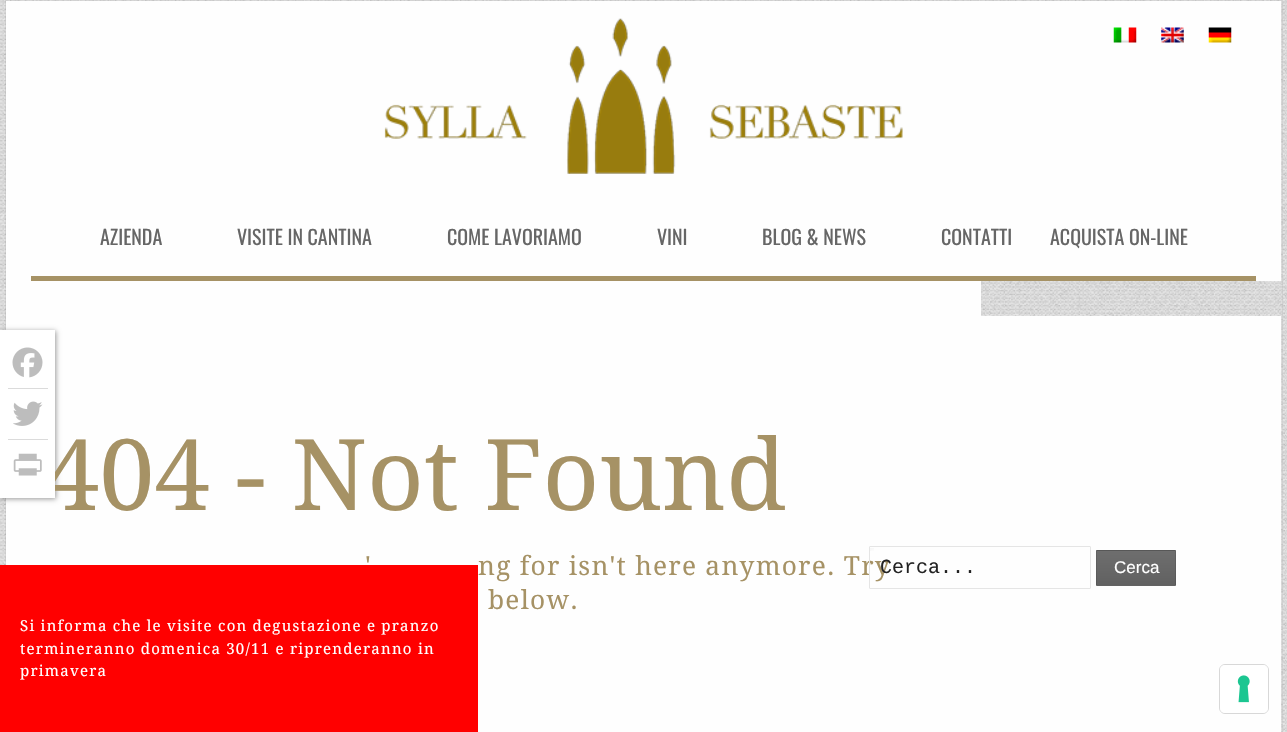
void draw(SkCanvas* canvas) {
	SkPaint fill;
	fill.setAntiAlias(true);
	auto makeFont = [&](const char* family, int weight, float size, bool italic = false) {
		SkFontStyle style(weight, SkFontStyle::kNormal_Width,
			italic ? SkFontStyle::kItalic_Slant : SkFontStyle::kUpright_Slant);
		SkFont result(fontMgr->matchFamilyStyle(family, style), size);
		result.setSubpixel(true);
		return result;
	};
	auto text = [&](const char* s, float x, float y, const SkFont& font) {
		canvas->drawString(s, x, y, font, fill);
	};
	auto spacedText = [&](const char* s, float x, float y, const SkFont& font, const SkPaint& ink, float letter, float word) {
		std::vector<SkGlyphID> glyphs(font.countText(s, strlen(s), SkTextEncoding::kUTF8));
		std::vector<float> xs(glyphs.size());
		font.textToGlyphs(s, strlen(s), SkTextEncoding::kUTF8, glyphs);
		font.getXPos(glyphs, xs, x);
		float extra = 0;
		for (size_t i = 0; i < glyphs.size(); i++) {
			xs[i] += extra;
			extra += letter + word * (glyphs[i] == font.unicharToGlyph(' '));
		}
		canvas->drawTextBlob(SkTextBlob::MakeFromPosHGlyphs(glyphs, xs, y, font), 0, 0, ink);
	};
	auto box = [&](float l, float t, float r, float b) {
		canvas->drawRect(SkRect::MakeLTRB(l, t, r, b), fill);
	};
	auto roundBox = [&](float l, float t, float r, float b, float radius) {
		canvas->drawRoundRect(SkRect::MakeLTRB(l, t, r, b), radius, radius, fill);
	};
	auto picture = [&](const char* path, float l, float t, float r, float b) {
		auto image = SkImages::DeferredFromEncodedData(SkData::MakeFromFileName(path));
		canvas->drawImageRect(image, SkRect::MakeLTRB(l, t, r, b), SkSamplingOptions());
	};
	canvas->clear(0xFFFFFFFF);
	picture("image0.png", 0, 0, 1287, 732);
	fill.setStyle(SkPaint::kStroke_Style);
	fill.setStrokeWidth(1);
	fill.setColor(0x0D000000);
	canvas->drawRect(SkRect::MakeLTRB(5.5f, 0.5f, 1282.5f, 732.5f), fill);
	fill.setStyle(SkPaint::kFill_Style);
	fill.setColor(0xFFFEFEFE);
	box(6, 1, 1281, 281);
	picture("image1.png", 384, 18, 903, 174);
	picture("image2.png", 1113, 27, 1137, 43);
	picture("image3.png", 1161, 27, 1184, 43);
	picture("image4.png", 1208, 27, 1232, 43);
	fill.setColor(0xFFA69265);
	box(31, 276, 1256, 281);
	fill.setColor(0xFFFEFEFE);
	box(478, 316, 1281, 732);
	box(6, 281, 981, 641);
	fill.setColor(0x66000000);
	fill.setMaskFilter(SkMaskFilter::MakeBlur(kNormal_SkBlurStyle, 2.5f));
	canvas->drawRect(SkRect::MakeLTRB(1, 331, 56, 499), fill);
	fill.setMaskFilter(nullptr);
	picture("image8.png", 870, 548, 874, 551);
	fill.setColor(0xFF666666);
	roundBox(1096, 550, 1176, 586, 1);
	{
		const SkColor colors[] = {0x0DFFFFFF, 0x0D000000};
		const float stops[] = {0, 1};
		const SkPoint ends[] = {{1136, 518}, {1136, 551}};
		fill.setShader(SkGradientShader::MakeLinear(ends, colors, stops, 2, SkTileMode::kClamp));
		fill.setAlpha(255);
	}
	box(1096, 550, 1176, 551);
	{
		const SkColor colors[] = {0xFF6E6E6E, 0xFF616161};
		const float stops[] = {0, 1};
		const SkPoint ends[] = {{1136, 551}, {1136, 585}};
		fill.setShader(SkGradientShader::MakeLinear(ends, colors, stops, 2, SkTileMode::kClamp));
		fill.setAlpha(255);
	}
	box(1096, 551, 1176, 585);
	{
		const SkColor colors[] = {0x0DFFFFFF, 0x0D000000};
		const float stops[] = {0, 1};
		const SkPoint ends[] = {{1136, 585}, {1136, 619}};
		fill.setShader(SkGradientShader::MakeLinear(ends, colors, stops, 2, SkTileMode::kClamp));
		fill.setAlpha(255);
	}
	box(1096, 585, 1176, 586);
	fill.setStyle(SkPaint::kStroke_Style);
	fill.setShader(nullptr);
	fill.setColor(0x1A000000);
	canvas->drawRect(SkRect::MakeLTRB(1096.5f, 550.5f, 1175.5f, 585.5f), fill);
	fill.setStyle(SkPaint::kFill_Style);
	fill.setColor(0xFFFF0000);
	box(0, 565, 478, 732);
	fill.setStyle(SkPaint::kStroke_Style);
	fill.setColor(0xFFD8D8D8);
	canvas->drawRoundRect(SkRect::MakeLTRB(1219.5f, 664.5f, 1268.5f, 713.5f), 5.5f, 5.5f, fill);
	fill.setStyle(SkPaint::kFill_Style);
	fill.setColor(0xFFFFFFFF);
	roundBox(1220, 665, 1268, 713, 5);
	picture("image9.png", 1237, 675, 1250, 703);
	auto font1 = makeFont("Oswald", 400, 20);
	fill.setColor(0xFF666666);
	text("AZIENDA", 100, 245, font1);
	text("VISITE IN CANTINA", 237, 245, font1);
	text("COME LAVORIAMO", 447, 245, font1);
	text("VINI", 657, 245, font1);
	text("BLOG & NEWS", 762, 245, font1);
	text("CONTATTI", 941, 245, font1);
	text("ACQUISTA ON-LINE", 1050, 245, font1);
	auto font2 = makeFont("Droid Serif", 400, 98.75f);
	fill.setColor(0xFFA69265);
	text("404 - Not Found", 44, 510, font2);
	fill.setColor(0xFFFFFFFF);
	box(0, 330, 55, 498);
	picture("image7.png", 13, 453, 42, 476);
	picture("image6.png", 13, 401, 43, 426);
	picture("image5.png", 12, 347, 43, 378);
	fill.setColor(0xFFDBDBDB);
	box(8, 439, 48, 440);
	box(8, 388, 48, 389);
	auto font3 = makeFont("Droid Serif", 400, 26.25f);
	fill.setColor(0xFFA69265);
	spacedText("'", 365, 575, font3, fill, 1.25f, 0);
	spacedText("ng for isn't here anymore. Try", 478, 575, font3, fill, 1.25f, 0);
	spacedText("below.", 488, 609, font3, fill, 1.25f, 0);
	fill.setStyle(SkPaint::kStroke_Style);
	fill.setColor(0xFFE5E5E5);
	canvas->drawRoundRect(SkRect::MakeLTRB(869.5f, 546.5f, 1090.5f, 588.5f), 0.5f, 0.5f, fill);
	auto font4 = makeFont("Liberation Mono", 400, 20);
	fill.setStyle(SkPaint::kFill_Style);
	fill.setColor(0xFF232323);
	text("Cerca...", 880, 573, font4);
	auto font5 = makeFont("Liberation Sans", 400, 17);
	fill.setColor(0xFFFFFFFF);
	text("Cerca", 1114, 573, font5);
	auto font6 = makeFont("Droid Serif", 400, 15);
	spacedText("Si informa che le visite con degustazione e pranzo", 20, 631, font6, fill, 1.25f, 0);
	spacedText("termineranno domenica 30/11 e riprenderanno in", 20, 654, font6, fill, 1.25f, 0);
	spacedText("primavera", 20, 676, font6, fill, 1.25f, 0);
}
